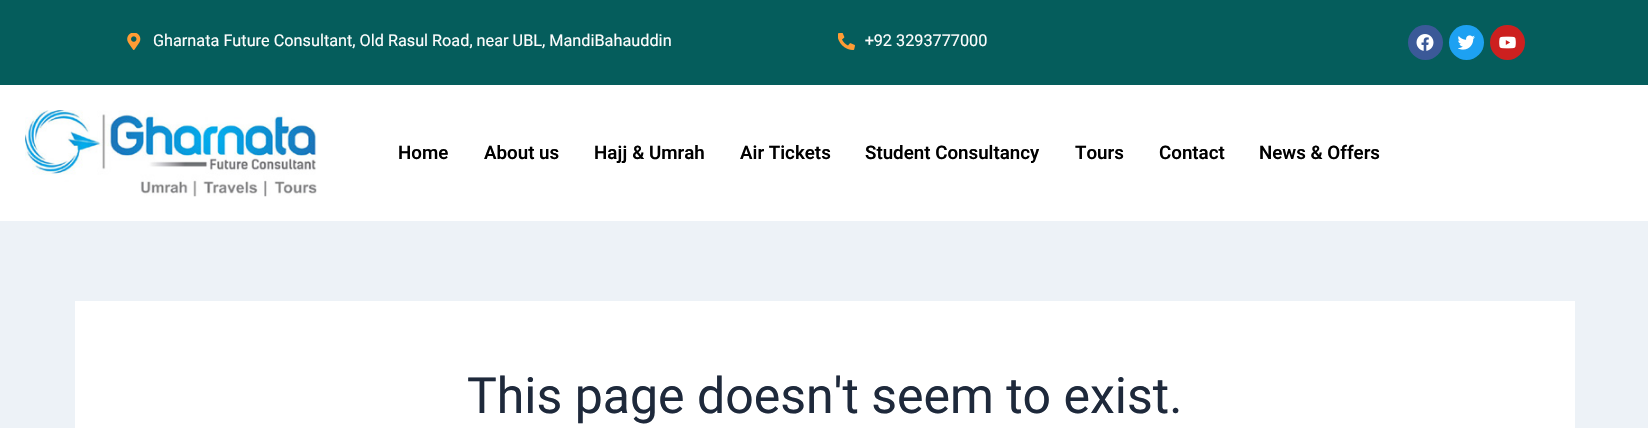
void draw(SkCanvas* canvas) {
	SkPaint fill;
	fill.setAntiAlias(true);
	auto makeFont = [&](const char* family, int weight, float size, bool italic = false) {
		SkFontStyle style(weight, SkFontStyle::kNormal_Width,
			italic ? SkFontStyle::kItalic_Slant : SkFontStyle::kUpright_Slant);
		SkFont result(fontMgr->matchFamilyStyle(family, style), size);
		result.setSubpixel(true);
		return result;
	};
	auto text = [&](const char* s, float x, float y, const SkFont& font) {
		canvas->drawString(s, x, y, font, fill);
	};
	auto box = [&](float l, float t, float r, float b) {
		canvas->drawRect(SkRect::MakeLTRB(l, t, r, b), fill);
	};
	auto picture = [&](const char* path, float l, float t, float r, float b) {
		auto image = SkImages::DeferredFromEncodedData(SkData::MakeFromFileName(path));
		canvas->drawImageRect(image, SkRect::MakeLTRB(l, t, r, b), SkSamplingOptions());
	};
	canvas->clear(0xFFEDF2F7);
	fill.setColor(0xFF055D5C);
	box(0, 0, 1648, 85);
	picture("image0.png", 127, 33, 141, 50);
	picture("image1.png", 838, 33, 855, 50);
	fill.setColor(0xFF3B5998);
	canvas->drawCircle(1425.5f, 42.5f, 17.5f, fill);
	picture("image2.png", 1416, 34, 1434, 51);
	fill.setColor(0xFF1DA1F2);
	canvas->drawCircle(1466.5f, 42.5f, 17.5f, fill);
	picture("image3.png", 1458, 35, 1475, 50);
	fill.setColor(0xFFCD201F);
	canvas->drawCircle(1507.5f, 42.5f, 17.5f, fill);
	picture("image4.png", 1499, 36, 1516, 49);
	fill.setColor(0xFFFFFFFF);
	box(0, 85, 1648, 221);
	picture("image5.png", 25, 110, 317, 197);
	box(75, 301, 1575, 428);
	auto font1 = makeFont("Heebo", 400, 16.25f);
	fill.setColor(0xFFFDFDFD);
	text("Gharnata Future Consultant, Old Rasul Road, near UBL, MandiBahauddin", 153, 46, font1);
	text("+92 3293777000", 865, 46, font1);
	auto font2 = makeFont("Heebo", 600, 18.75f);
	fill.setColor(0xFF000000);
	text("Home", 398, 159, font2);
	text("About us", 484, 159, font2);
	text("Hajj & Umrah", 594, 159, font2);
	text("Air Tickets", 740, 159, font2);
	text("Student Consultancy", 865, 159, font2);
	text("Tours", 1075, 159, font2);
	text("Contact", 1159, 159, font2);
	text("News & Offers", 1259, 159, font2);
	auto font3 = makeFont("Roboto", 400, 50);
	fill.setColor(0xFF1E293B);
	text("This page doesn't seem to exist.", 467, 413, font3);
}
